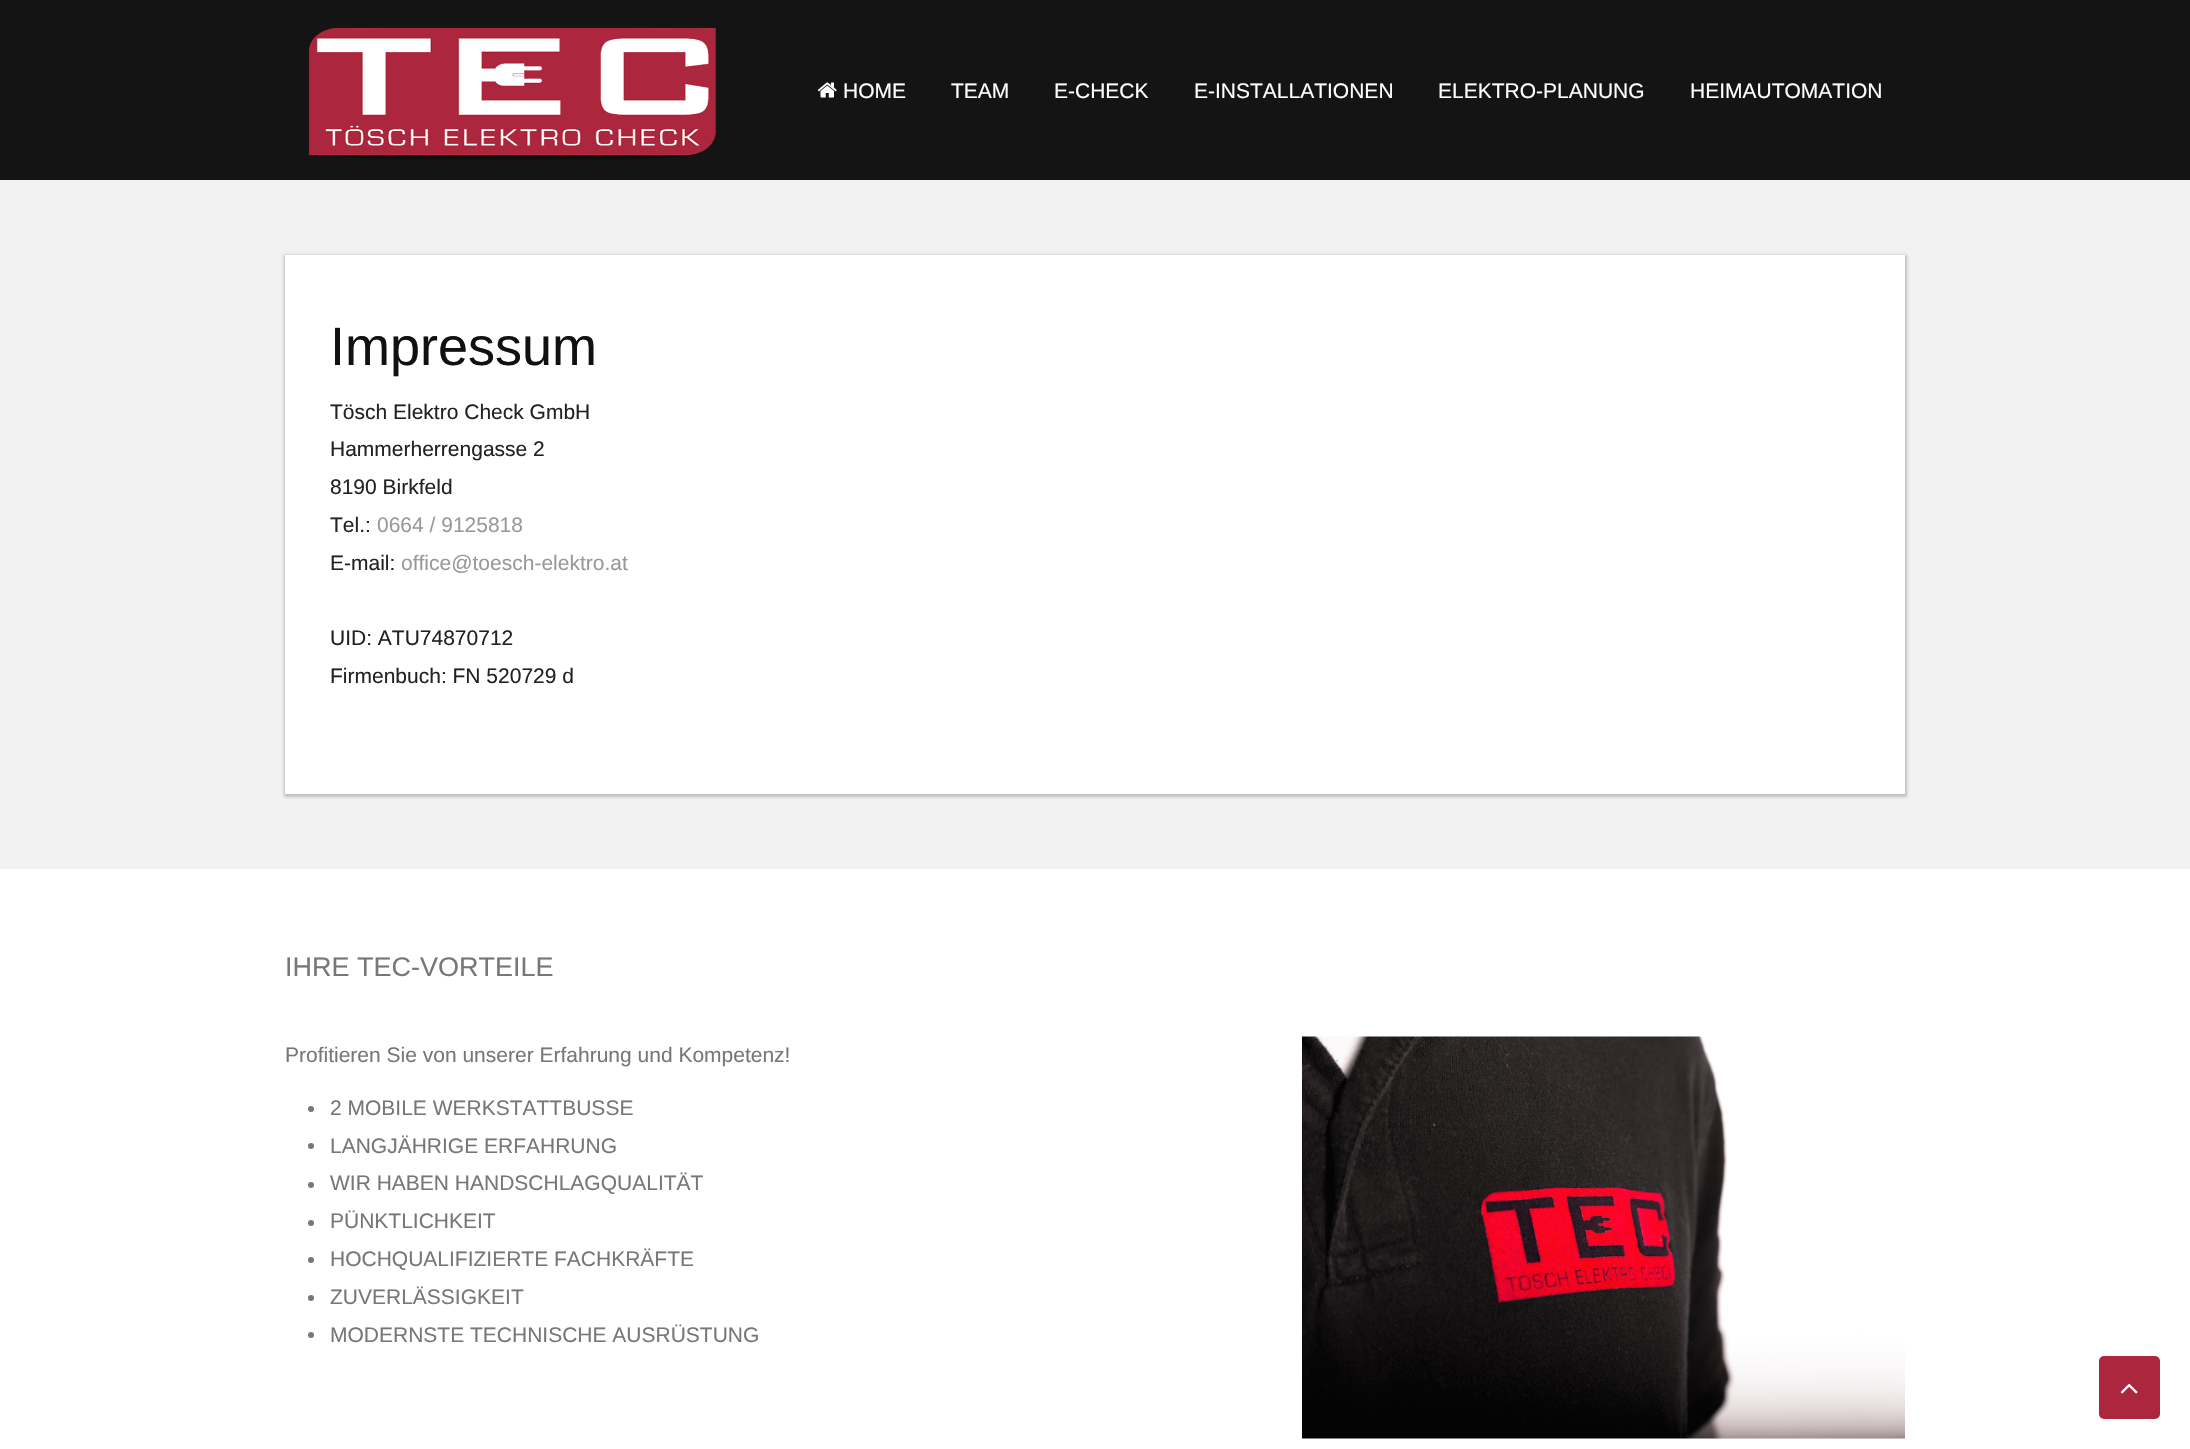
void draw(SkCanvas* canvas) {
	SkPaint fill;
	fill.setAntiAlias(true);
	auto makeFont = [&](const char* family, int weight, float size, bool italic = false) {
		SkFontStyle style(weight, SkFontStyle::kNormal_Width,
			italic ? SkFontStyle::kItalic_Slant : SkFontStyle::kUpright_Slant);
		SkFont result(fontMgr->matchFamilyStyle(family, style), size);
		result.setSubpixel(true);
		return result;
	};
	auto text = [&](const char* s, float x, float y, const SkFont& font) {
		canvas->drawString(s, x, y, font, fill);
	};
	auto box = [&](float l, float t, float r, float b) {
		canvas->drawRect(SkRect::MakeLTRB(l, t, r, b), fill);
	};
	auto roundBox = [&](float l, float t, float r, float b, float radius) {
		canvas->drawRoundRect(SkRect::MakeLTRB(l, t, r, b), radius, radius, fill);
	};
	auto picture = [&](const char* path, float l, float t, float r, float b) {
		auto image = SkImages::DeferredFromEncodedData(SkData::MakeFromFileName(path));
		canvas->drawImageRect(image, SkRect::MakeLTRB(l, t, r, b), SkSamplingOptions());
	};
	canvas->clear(0xFFF2F2F2);
	fill.setColor(0xFF141414);
	box(0, 0, 2190, 180);
	picture("image0.png", 308, 27, 716, 160);
	picture("image1.png", 817, 82, 837, 98);
	fill.setColor(0xFFBEBEBE);
	fill.setMaskFilter(SkMaskFilter::MakeBlur(kNormal_SkBlurStyle, 1.5f));
	canvas->drawRect(SkRect::MakeLTRB(284, 255, 1907, 797), fill);
	fill.setMaskFilter(nullptr);
	fill.setColor(0xFFFFFFFF);
	box(285, 255, 1905, 794);
	box(0, 869, 2190, 1449);
	picture("image2.png", 1302, 1036, 1905, 1439);
	fill.setColor(0xFF777777);
	canvas->drawCircle(311, 1109, 3, fill);
	canvas->drawCircle(311, 1146, 3, fill);
	canvas->drawCircle(311, 1185, 3, fill);
	canvas->drawCircle(311, 1223, 3, fill);
	canvas->drawCircle(311, 1260, 3, fill);
	canvas->drawCircle(311, 1298, 3, fill);
	canvas->drawCircle(311, 1335, 3, fill);
	fill.setColor(0xFFAC263D);
	roundBox(2099, 1356, 2160, 1419, 5);
	picture("image3.png", 2120, 1383, 2138, 1394);
	auto font1 = makeFont("Liberation Sans", 400, 21);
	fill.setColor(0xFFFFFFFF);
	text("HOME", 843, 98, font1);
	text("TEAM", 951, 98, font1);
	text("E-CHECK", 1054, 98, font1);
	text("E-INSTALLATIONEN", 1194, 98, font1);
	text("ELEKTRO-PLANUNG", 1438, 98, font1);
	text("HEIMAUTOMATION", 1690, 98, font1);
	auto font2 = makeFont("Liberation Sans", 400, 54);
	fill.setColor(0xFF111111);
	text("Impressum", 330, 365, font2);
	fill.setColor(0xFF222222);
	text("Tösch Elektro Check GmbH", 330, 419, font1);
	text("Hammerherrengasse 2", 330, 456, font1);
	text("8190 Birkfeld", 330, 494, font1);
	text("Tel.:", 330, 532, font1);
	fill.setColor(0xFF999999);
	text("0664 / 9125818", 377, 532, font1);
	fill.setColor(0xFF222222);
	text("E-mail:", 330, 570, font1);
	fill.setColor(0xFF999999);
	text("office@toesch-elektro.at", 401, 570, font1);
	fill.setColor(0xFF222222);
	text("UID: ATU74870712", 330, 645, font1);
	text("Firmenbuch: FN 520729 d", 330, 683, font1);
	auto font3 = makeFont("Liberation Sans", 400, 27);
	fill.setColor(0xFF777777);
	text("IHRE TEC-VORTEILE", 285, 976, font3);
	text("Profitieren Sie von unserer Erfahrung und Kompetenz!", 285, 1062, font1);
	text("2 MOBILE WERKSTATTBUSSE", 330, 1115, font1);
	text("LANGJÄHRIGE ERFAHRUNG", 330, 1153, font1);
	text("WIR HABEN HANDSCHLAGQUALITÄT", 330, 1190, font1);
	text("PÜNKTLICHKEIT", 330, 1228, font1);
	text("HOCHQUALIFIZIERTE FACHKRÄFTE", 330, 1266, font1);
	text("ZUVERLÄSSIGKEIT", 330, 1304, font1);
	text("MODERNSTE TECHNISCHE AUSRÜSTUNG", 330, 1342, font1);
}
